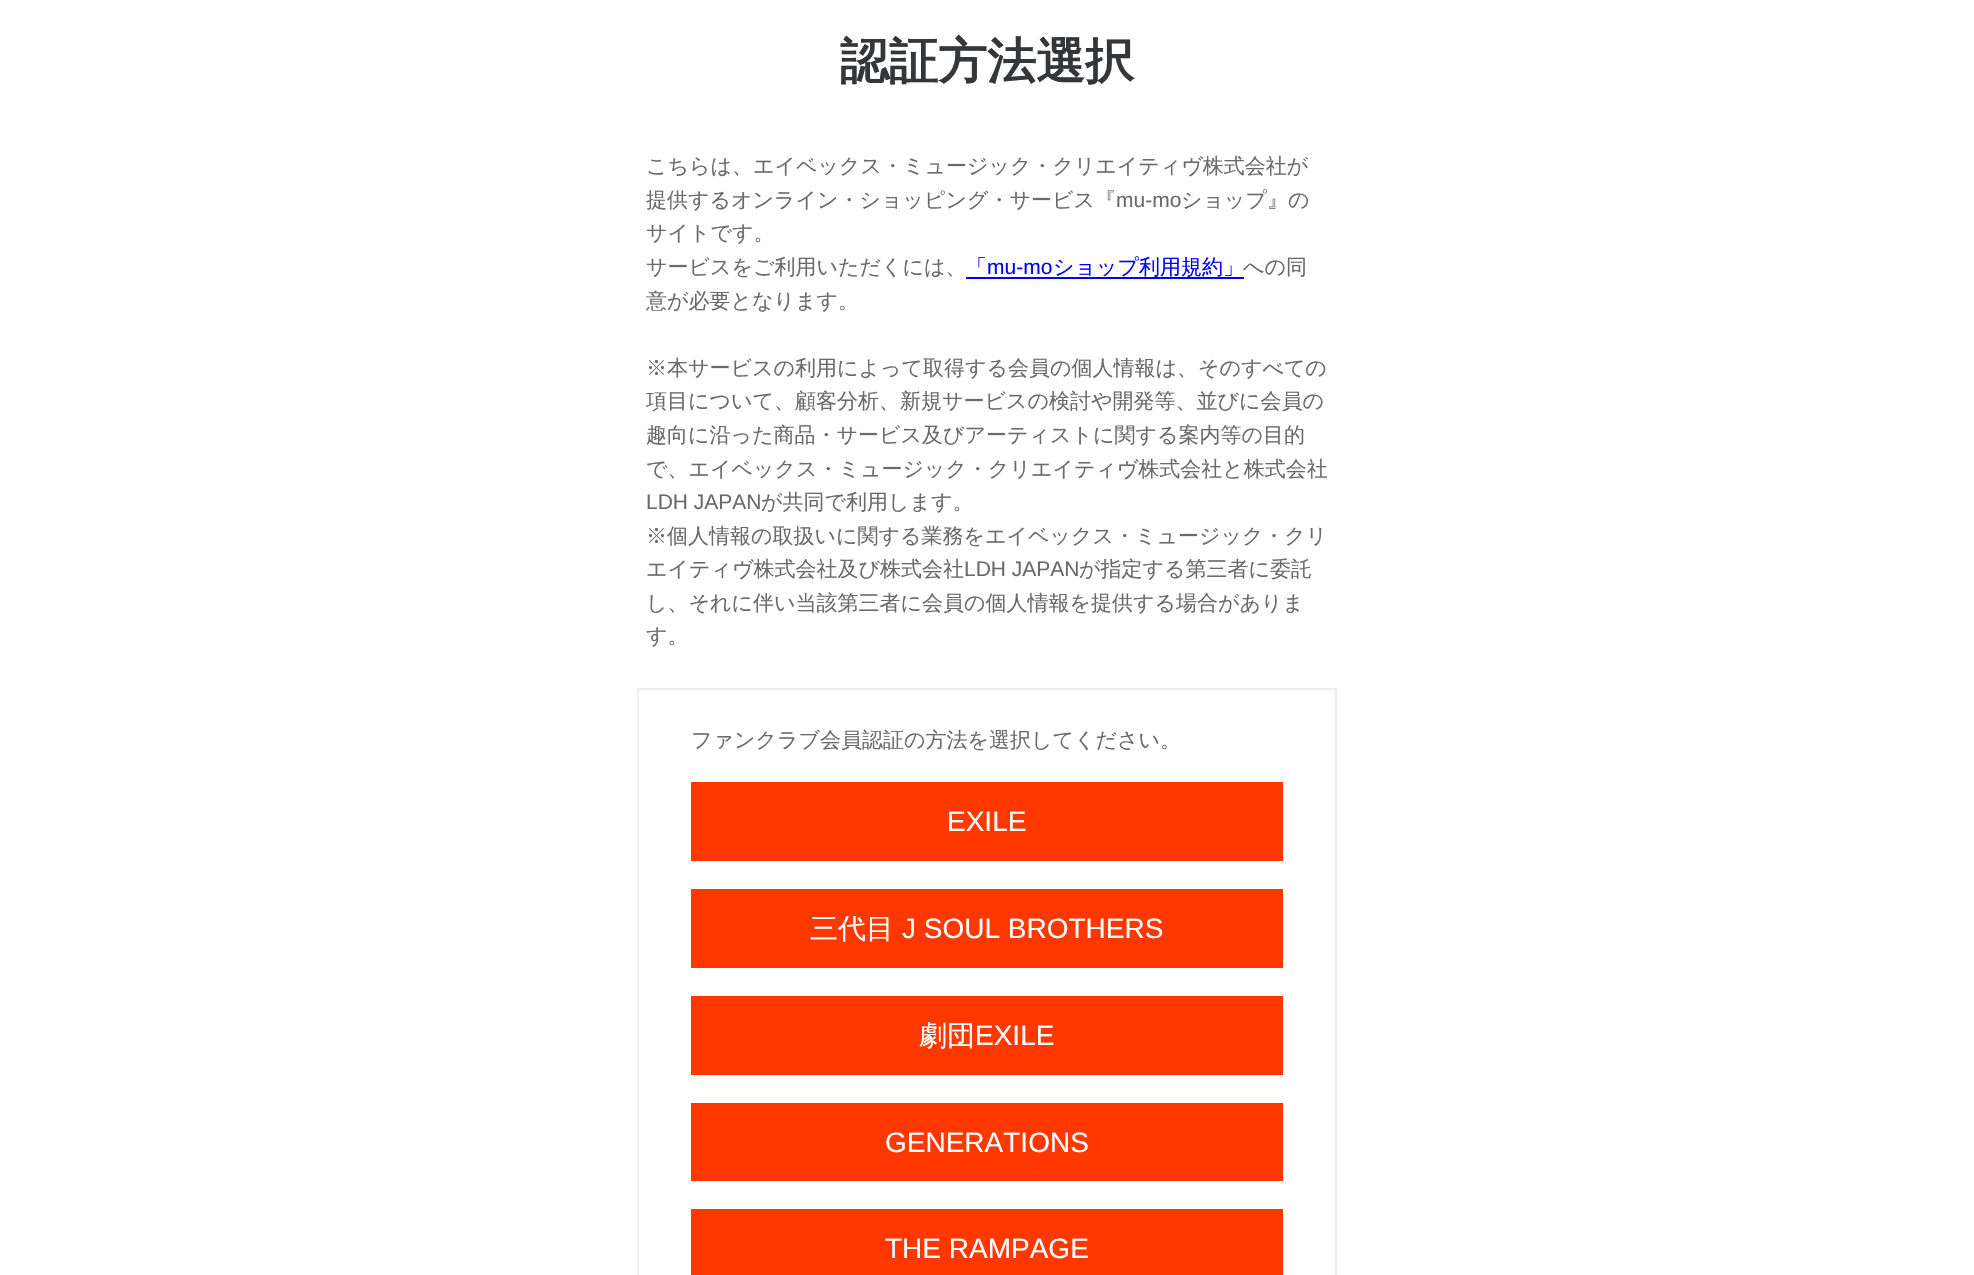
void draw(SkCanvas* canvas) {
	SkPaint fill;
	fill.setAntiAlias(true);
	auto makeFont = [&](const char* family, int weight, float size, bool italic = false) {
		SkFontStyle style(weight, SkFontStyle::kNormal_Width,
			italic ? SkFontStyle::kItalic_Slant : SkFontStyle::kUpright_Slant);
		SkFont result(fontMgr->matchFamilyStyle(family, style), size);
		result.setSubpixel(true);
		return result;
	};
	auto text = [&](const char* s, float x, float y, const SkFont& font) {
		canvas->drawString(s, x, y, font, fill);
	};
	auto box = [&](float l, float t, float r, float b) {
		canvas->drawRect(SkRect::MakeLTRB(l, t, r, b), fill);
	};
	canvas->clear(0xFFFFFFFF);
	fill.setColor(0xFF0000FF);
	box(966, 277, 1244, 279);
	fill.setStyle(SkPaint::kStroke_Style);
	fill.setStrokeWidth(2);
	fill.setColor(0xFFEEEEEE);
	canvas->drawRect(SkRect::MakeLTRB(638, 689, 1336, 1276), fill);
	fill.setStyle(SkPaint::kFill_Style);
	fill.setColor(0xFFFF3700);
	box(691, 782, 1283, 861);
	box(691, 889, 1283, 968);
	box(691, 996, 1283, 1075);
	box(691, 1103, 1283, 1181);
	box(691, 1209, 1283, 1275);
	auto font1 = makeFont("WenQuanYi Zen Hei", 700, 49);
	fill.setColor(0xFF343739);
	text("認証方法選択", 840, 78, font1);
	auto font2 = makeFont("WenQuanYi Zen Hei", 500, 21);
	fill.setColor(0xFF6A6A6A);
	text("こちらは、エイベックス・ミュージック・クリエイティヴ株式会社が", 646, 173, font2);
	text("提供するオンライン・ショッピング・サービス『", 646, 207, font2);
	auto font3 = makeFont("Liberation Sans", 400, 21);
	text("mu-mo", 1116, 207, font3);
	text("ショップ』の", 1181, 207, font2);
	text("サイトです。", 646, 240, font2);
	text("サービスをご利用いただくには、", 646, 274, font2);
	fill.setColor(0xFF0000FF);
	text("「", 966, 274, font2);
	text("mu-mo", 987, 274, font3);
	text("ショップ利用規約」", 1053, 274, font2);
	fill.setColor(0xFF6A6A6A);
	text("への同", 1243, 274, font2);
	text("意が必要となります。", 646, 308, font2);
	text("※本サービスの利用によって取得する会員の個人情報は、そのすべての", 646, 375, font2);
	text("項目について、顧客分析、新規サービスの検討や開発等、並びに会員の", 646, 408, font2);
	text("趣向に沿った商品・サービス及びアーティストに関する案内等の目的", 646, 442, font2);
	text("で、エイベックス・ミュージック・クリエイティヴ株式会社と株式会社", 646, 476, font2);
	text("LDH JAPAN", 646, 509, font3);
	text("が共同で利用します。", 761, 509, font2);
	text("※個人情報の取扱いに関する業務をエイベックス・ミュージック・クリ", 646, 543, font2);
	text("エイティヴ株式会社及び株式会社", 646, 576, font2);
	text("LDH JAPAN", 964, 576, font3);
	text("が指定する第三者に委託", 1079, 576, font2);
	text("し、それに伴い当該第三者に会員の個人情報を提供する場合がありま", 646, 610, font2);
	text("す。", 646, 643, font2);
	text("ファンクラブ会員認証の方法を選択してください。", 691, 747, font2);
	auto font4 = makeFont("Liberation Sans", 400, 28);
	fill.setColor(0xFFFFFFFF);
	text("EXILE", 947, 831, font4);
	auto font5 = makeFont("WenQuanYi Zen Hei", 500, 28);
	text("三代目", 810, 938, font5);
	text("J SOUL BROTHERS", 902, 938, font4);
	text("劇団", 919, 1045, font5);
	text("EXILE", 975, 1045, font4);
	text("GENERATIONS", 885, 1152, font4);
	text("THE RAMPAGE", 885, 1258, font4);
}
